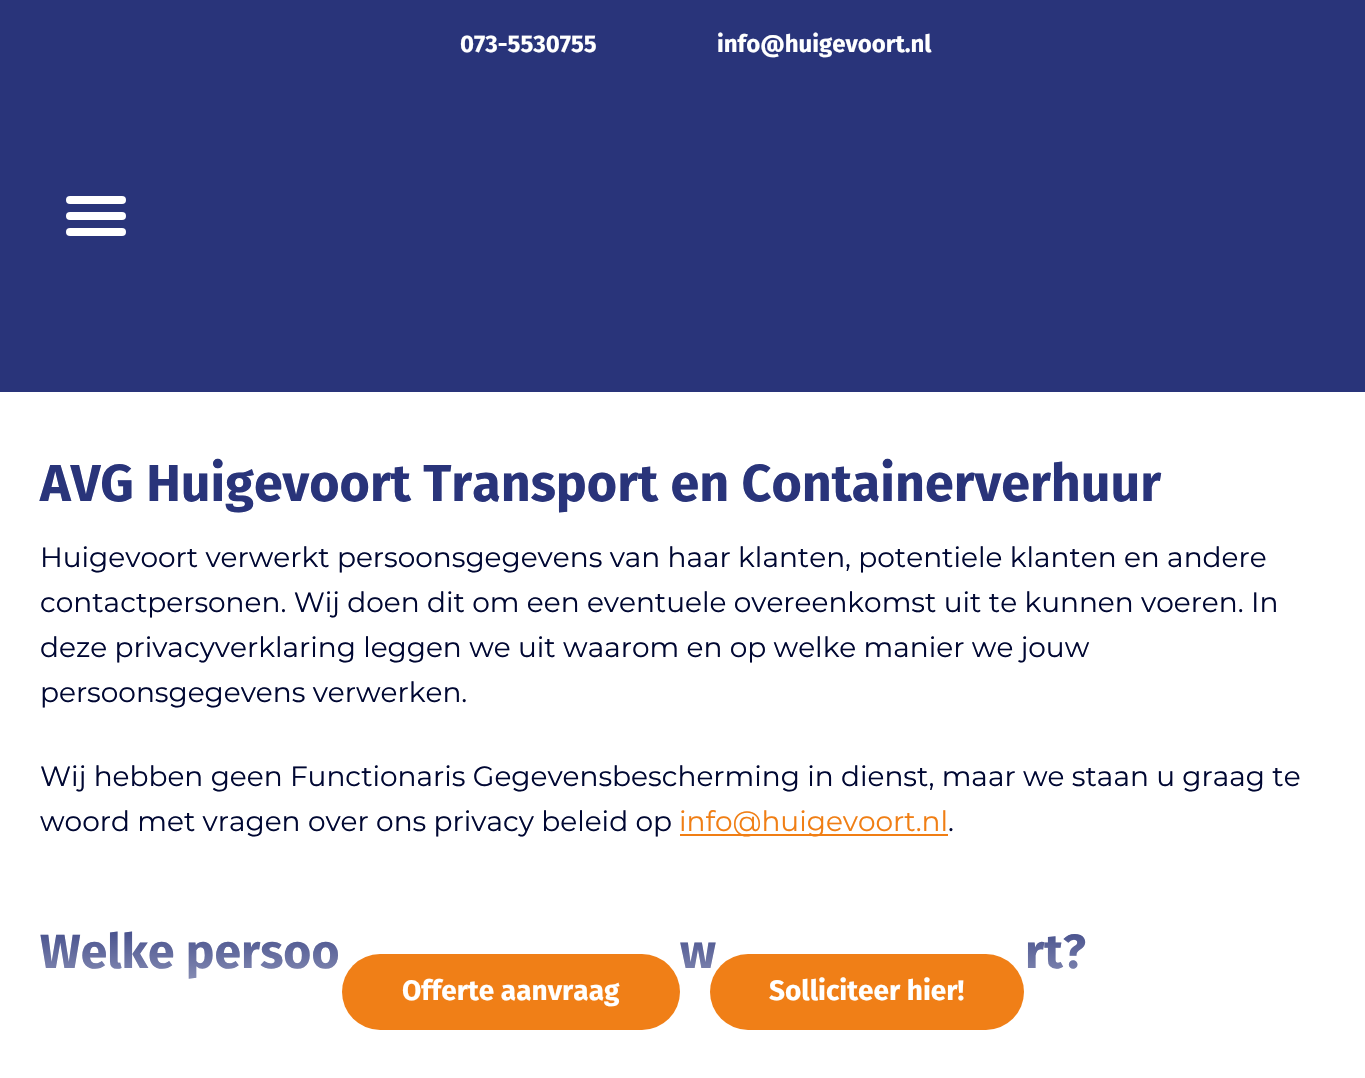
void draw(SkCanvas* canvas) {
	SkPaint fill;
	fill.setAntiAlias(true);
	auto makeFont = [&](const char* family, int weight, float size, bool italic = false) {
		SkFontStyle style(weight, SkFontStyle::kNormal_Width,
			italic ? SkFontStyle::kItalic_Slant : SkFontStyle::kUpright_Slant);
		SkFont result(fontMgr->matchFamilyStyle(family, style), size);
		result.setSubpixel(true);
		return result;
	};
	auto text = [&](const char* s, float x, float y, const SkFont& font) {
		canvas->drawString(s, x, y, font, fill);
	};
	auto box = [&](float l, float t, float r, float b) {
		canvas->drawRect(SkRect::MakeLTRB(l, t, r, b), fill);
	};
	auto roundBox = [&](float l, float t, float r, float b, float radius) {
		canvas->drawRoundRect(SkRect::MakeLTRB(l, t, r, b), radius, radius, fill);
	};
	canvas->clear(0xFFFFFFFF);
	fill.setColor(0xFF29347A);
	box(0, 0, 1365, 392);
	fill.setColor(0xFFFFFFFF);
	roundBox(66, 196, 126, 204, 4);
	roundBox(66, 212, 126, 220, 4);
	roundBox(66, 228, 126, 236, 4);
	fill.setColor(0xFFF07E14);
	box(680, 834, 948, 836);
	auto font1 = makeFont("Fira Sans", 700, 24);
	fill.setColor(0xFFFFFFFF);
	text("073-5530755", 460, 52, font1);
	text("info@huigevoort.nl", 717, 52, font1);
	auto font2 = makeFont("Fira Sans", 700, 52);
	fill.setColor(0xFF29347A);
	text("AVG Huigevoort Transport en Containerverhuur", 40, 501, font2);
	auto font3 = makeFont("Montserrat", 400, 28);
	fill.setColor(0xFF000732);
	text("Huigevoort verwerkt persoonsgegevens van haar klanten, potentiele klanten en andere", 40, 567, font3);
	text("contactpersonen. Wij doen dit om een eventuele overeenkomst uit te kunnen voeren. In", 40, 612, font3);
	text("deze privacyverklaring leggen we uit waarom en op welke manier we jouw", 40, 657, font3);
	text("persoonsgegevens verwerken.", 40, 702, font3);
	text("Wij hebben geen Functionaris Gegevensbescherming in dienst, maar we staan u graag te", 40, 786, font3);
	text("woord met vragen over ons privacy beleid op", 40, 831, font3);
	fill.setColor(0xFFF07E14);
	text("info@huigevoort.nl", 679, 831, font3);
	fill.setColor(0xFF000732);
	text(".", 948, 831, font3);
	auto font4 = makeFont("Fira Sans", 700, 48);
	fill.setColor(0xFF29347A);
	text("Welke persoo", 40, 968, font4);
	text("w", 680, 968, font4);
	text("rt?", 1025, 968, font4);
	{
		const SkColor colors[] = {0xFFFFFFFF, 0x00FFFFFF};
		const float stops[] = {0, 1};
		const SkPoint ends[] = {{683, 1078}, {683, 906}};
		fill.setShader(SkGradientShader::MakeLinear(ends, colors, stops, 2, SkTileMode::kClamp));
		fill.setAlpha(255);
	}
	box(40, 931, 1085, 979);
	fill.setShader(nullptr);
	fill.setColor(0xFFF07F17);
	roundBox(710, 954, 1024, 1030, 38);
	auto font5 = makeFont("Fira Sans", 700, 28);
	fill.setColor(0xFFFFFFFF);
	text("Solliciteer hier!", 769, 1000, font5);
	fill.setColor(0xFFF07F17);
	roundBox(342, 954, 680, 1030, 38);
	fill.setColor(0xFFFFFFFF);
	text("Offerte aanvraag", 402, 1000, font5);
}
